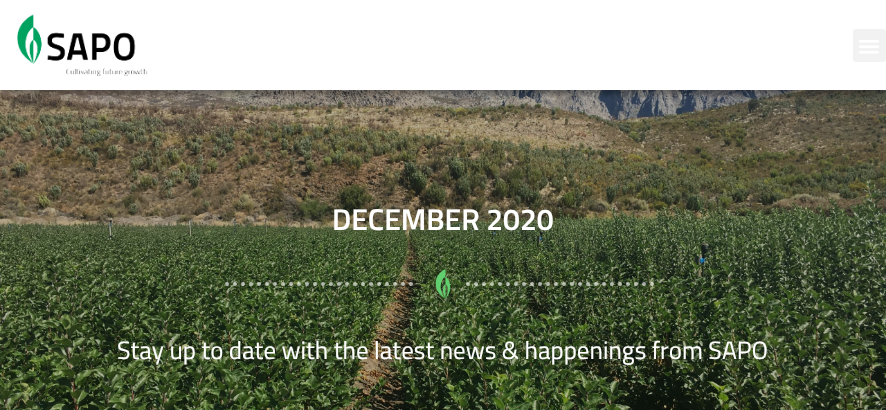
void draw(SkCanvas* canvas) {
	SkPaint fill;
	fill.setAntiAlias(true);
	auto makeFont = [&](const char* family, int weight, float size, bool italic = false) {
		SkFontStyle style(weight, SkFontStyle::kNormal_Width,
			italic ? SkFontStyle::kItalic_Slant : SkFontStyle::kUpright_Slant);
		SkFont result(fontMgr->matchFamilyStyle(family, style), size);
		result.setSubpixel(true);
		return result;
	};
	auto text = [&](const char* s, float x, float y, const SkFont& font) {
		canvas->drawString(s, x, y, font, fill);
	};
	auto roundBox = [&](float l, float t, float r, float b, float radius) {
		canvas->drawRoundRect(SkRect::MakeLTRB(l, t, r, b), radius, radius, fill);
	};
	auto picture = [&](const char* path, float l, float t, float r, float b) {
		auto image = SkImages::DeferredFromEncodedData(SkData::MakeFromFileName(path));
		canvas->drawImageRect(image, SkRect::MakeLTRB(l, t, r, b), SkSamplingOptions());
	};
	canvas->clear(0xFFFFFFFF);
	picture("image2.png", 0, 90, 886, 410);
	canvas->save();
	canvas->clipRect(SkRect::MakeLTRB(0, 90, 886, 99));
	fill.setColor(0x4D000000);
	fill.setMaskFilter(SkMaskFilter::MakeBlur(kNormal_SkBlurStyle, 2.5f));
	canvas->drawRect(SkRect::MakeLTRB(0, 5, 886, 95), fill);
	fill.setMaskFilter(nullptr);
	canvas->restore();
	picture("image0.png", 17, 14, 148, 77);
	fill.setColor(0xFFF2F2F2);
	roundBox(853, 29, 886, 62, 3);
	picture("image1.png", 859, 40, 879, 54);
	fill.setStyle(SkPaint::kStroke_Style);
	fill.setStrokeWidth(4);
	fill.setStrokeCap(SkPaint::kRound_Cap);
	fill.setColor(0xA1FFFFFF);
	fill.setPathEffect(SkDashPathEffect::Make({{0, 8}}, 0));
	canvas->drawPath(SkPathBuilder().moveTo(227, 284).lineTo(418, 284).detach(), fill);
	fill.setPathEffect(nullptr);
	picture("image3.png", 435, 269, 451, 299);
	fill.setPathEffect(SkDashPathEffect::Make({{0, 8}}, 0));
	canvas->drawPath(SkPathBuilder().moveTo(468, 284).lineTo(660, 284).detach(), fill);
	fill.setPathEffect(nullptr);
	auto font1 = makeFont("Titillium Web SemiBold", 600, 30);
	fill.setStyle(SkPaint::kFill_Style);
	fill.setColor(0xFFFFFFFF);
	text("DECEMBER 2020", 332, 230, font1);
	auto font2 = makeFont("Titillium Web", 400, 25);
	text("Stay up to date with the latest news & happenings from SAPO", 117, 359, font2);
}
